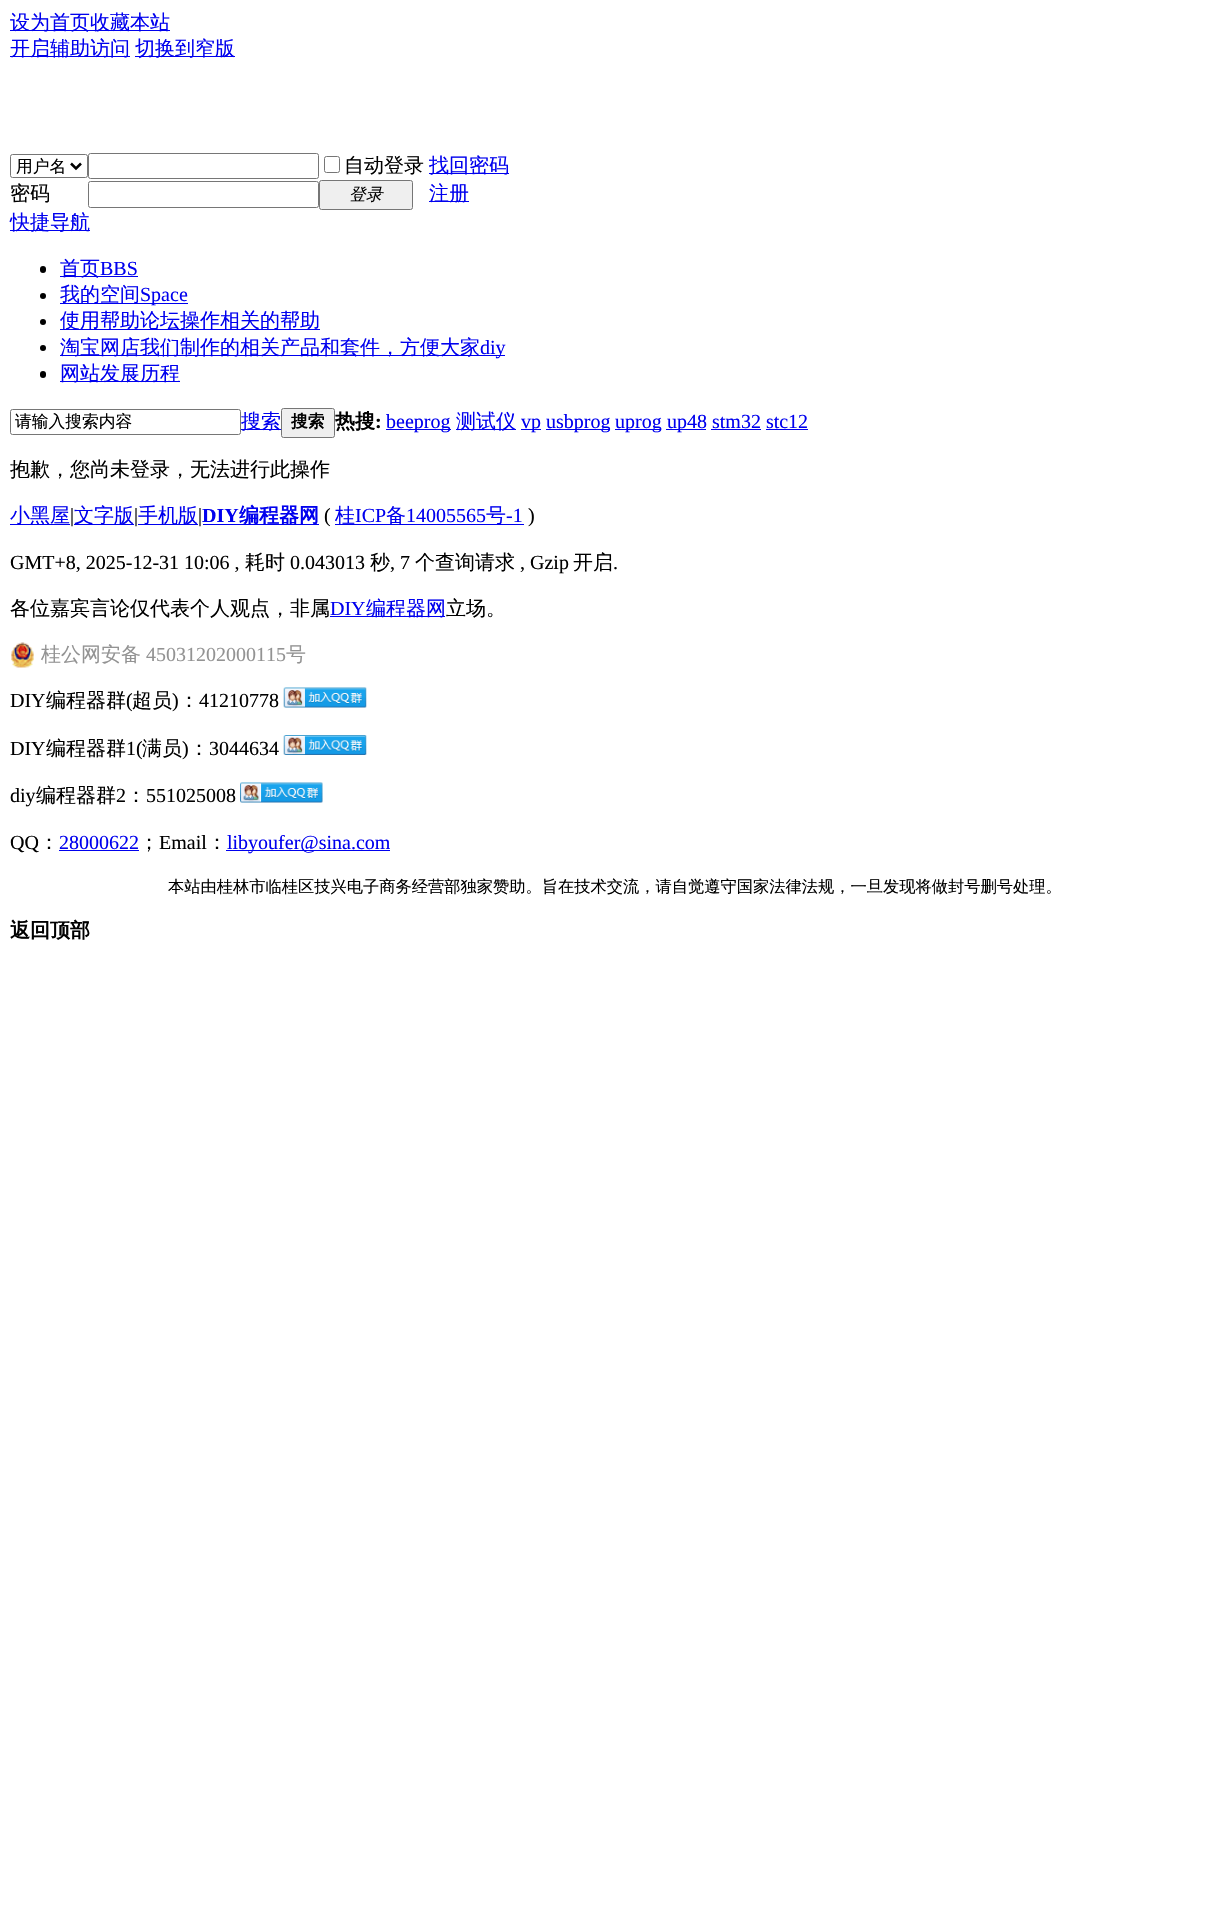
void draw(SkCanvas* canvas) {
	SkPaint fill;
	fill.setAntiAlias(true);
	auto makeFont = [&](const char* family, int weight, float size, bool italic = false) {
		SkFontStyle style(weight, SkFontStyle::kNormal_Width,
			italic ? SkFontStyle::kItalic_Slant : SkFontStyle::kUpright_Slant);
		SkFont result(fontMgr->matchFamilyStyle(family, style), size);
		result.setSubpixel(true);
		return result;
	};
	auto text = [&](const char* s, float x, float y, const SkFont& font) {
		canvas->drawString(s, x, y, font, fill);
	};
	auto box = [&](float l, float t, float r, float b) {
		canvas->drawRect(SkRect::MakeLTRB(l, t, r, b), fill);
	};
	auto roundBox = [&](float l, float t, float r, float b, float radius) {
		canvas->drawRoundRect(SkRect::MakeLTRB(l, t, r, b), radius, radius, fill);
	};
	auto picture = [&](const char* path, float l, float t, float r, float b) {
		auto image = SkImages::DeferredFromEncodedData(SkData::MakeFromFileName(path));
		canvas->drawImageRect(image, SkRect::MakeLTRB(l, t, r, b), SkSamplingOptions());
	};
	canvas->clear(0xFFFFFFFF);
	fill.setColor(0xFF0000EE);
	box(10, 30, 170, 31);
	box(10, 56, 130, 57);
	box(135, 56, 235, 57);
	fill.setStyle(SkPaint::kStroke_Style);
	fill.setStrokeWidth(1);
	fill.setColor(0xFF767676);
	canvas->drawRoundRect(SkRect::MakeLTRB(10.5f, 154.5f, 87.5f, 177.5f), 2, 2, fill);
	fill.setStrokeWidth(2.5f);
	fill.setColor(0xFF000000);
	canvas->drawPath(SkPathBuilder().moveTo(71, 163.5f).lineTo(76, 168.5f).lineTo(81, 163.5f).detach(), fill);
	fill.setStrokeWidth(1);
	fill.setColor(0xFF767676);
	canvas->drawRoundRect(SkRect::MakeLTRB(88.5f, 153.5f, 318.5f, 178.5f), 2, 2, fill);
	canvas->drawRoundRect(SkRect::MakeLTRB(324.5f, 156.5f, 339.5f, 172.5f), 2, 2, fill);
	fill.setStyle(SkPaint::kFill_Style);
	fill.setColor(0xFF0000EE);
	box(429, 173, 509, 174);
	fill.setStyle(SkPaint::kStroke_Style);
	fill.setColor(0xFF767676);
	canvas->drawRoundRect(SkRect::MakeLTRB(88.5f, 181.5f, 318.5f, 207.5f), 2, 2, fill);
	fill.setStyle(SkPaint::kFill_Style);
	fill.setColor(0xFFEFEFEF);
	canvas->drawRoundRect(SkRect::MakeLTRB(319.5f, 180.5f, 412.5f, 209.5f), 2, 2, fill);
	fill.setStyle(SkPaint::kStroke_Style);
	fill.setColor(0xFF767676);
	canvas->drawRoundRect(SkRect::MakeLTRB(319.5f, 180.5f, 412.5f, 209.5f), 2, 2, fill);
	fill.setStyle(SkPaint::kFill_Style);
	fill.setColor(0xFF0000EE);
	box(429, 201, 469, 202);
	box(10, 230, 90, 231);
	fill.setColor(0xFF000000);
	roundBox(40, 266, 46, 273, 3);
	fill.setColor(0xFF0000EE);
	box(60, 276, 138, 277);
	fill.setColor(0xFF000000);
	canvas->drawCircle(43, 296, 3, fill);
	fill.setColor(0xFF0000EE);
	box(60, 303, 188, 304);
	fill.setColor(0xFF000000);
	canvas->drawCircle(43, 322, 3, fill);
	fill.setColor(0xFF0000EE);
	box(60, 329, 320, 330);
	fill.setColor(0xFF000000);
	canvas->drawCircle(43, 348, 3, fill);
	fill.setColor(0xFF0000EE);
	box(60, 355, 505, 356);
	fill.setColor(0xFF000000);
	roundBox(40, 371, 46, 378, 3);
	fill.setColor(0xFF0000EE);
	box(60, 381, 180, 382);
	fill.setStyle(SkPaint::kStroke_Style);
	fill.setColor(0xFF767676);
	canvas->drawRoundRect(SkRect::MakeLTRB(10.5f, 409.5f, 240.5f, 434.5f), 2, 2, fill);
	fill.setStyle(SkPaint::kFill_Style);
	fill.setColor(0xFF0000EE);
	box(241, 429, 281, 430);
	fill.setColor(0xFFEFEFEF);
	canvas->drawRoundRect(SkRect::MakeLTRB(281.5f, 408.5f, 334.5f, 437.5f), 2, 2, fill);
	fill.setStyle(SkPaint::kStroke_Style);
	fill.setColor(0xFF767676);
	canvas->drawRoundRect(SkRect::MakeLTRB(281.5f, 408.5f, 334.5f, 437.5f), 2, 2, fill);
	fill.setStyle(SkPaint::kFill_Style);
	fill.setColor(0xFF0000EE);
	box(386, 429, 451, 430);
	box(456, 429, 516, 430);
	box(521, 429, 541, 430);
	box(546, 429, 610, 430);
	box(615, 429, 661, 430);
	box(666, 429, 706, 430);
	box(711, 429, 761, 430);
	box(766, 429, 808, 430);
	box(10, 524, 70, 525);
	box(74, 524, 134, 525);
	box(138, 524, 198, 525);
	box(203, 524, 319, 525);
	box(335, 524, 524, 525);
	box(330, 616, 445, 617);
	picture("image0.png", 11, 642, 34, 668);
	picture("image1.png", 283, 687, 367, 708);
	picture("image2.png", 283, 735, 367, 755);
	picture("image3.png", 240, 782, 323, 803);
	box(59, 850, 139, 851);
	box(226, 850, 390, 851);
	auto font1 = makeFont("WenQuanYi Zen Hei", 500, 20);
	text("设为首页收藏本站", 10, 29, font1);
	text("开启辅助访问", 10, 55, font1);
	text("切换到窄版", 135, 55, font1);
	auto font2 = makeFont("WenQuanYi Zen Hei", 500, 16.75f);
	fill.setColor(0xFF000000);
	text("用户名", 16, 172, font2);
	text("自动登录", 344, 172, font1);
	fill.setColor(0xFF0000EE);
	text("找回密码", 429, 172, font1);
	fill.setColor(0xFF000000);
	text("密码", 10, 200, font1);
	auto font3 = makeFont("WenQuanYi Zen Hei", 500, 16.75f, true);
	text("登录", 349, 200, font3);
	fill.setColor(0xFF0000EE);
	text("注册", 429, 200, font1);
	text("快捷导航", 10, 229, font1);
	text("首页", 60, 275, font1);
	auto font4 = makeFont("Liberation Serif", 400, 20);
	text("BBS", 100, 275, font4);
	text("我的空间", 60, 301, font1);
	text("Space", 140, 301, font4);
	text("使用帮助论坛操作相关的帮助", 60, 327, font1);
	text("淘宝网店我们制作的相关产品和套件，方便大家", 60, 354, font1);
	text("diy", 480, 354, font4);
	text("网站发展历程", 60, 380, font1);
	fill.setColor(0xFF000000);
	text("请输入搜索内容", 15, 427, font2);
	fill.setColor(0xFF0000EE);
	text("搜索", 241, 428, font1);
	auto font5 = makeFont("WenQuanYi Zen Hei", 700, 16.75f);
	fill.setColor(0xFF000000);
	text("搜索", 291, 427, font5);
	auto font6 = makeFont("WenQuanYi Zen Hei", 700, 20);
	text("热搜", 335, 428, font6);
	auto font7 = makeFont("Liberation Serif", 700, 20);
	text(":", 375, 428, font7);
	fill.setColor(0xFF0000EE);
	text("beeprog", 386, 428, font4);
	text("测试仪", 456, 428, font1);
	text("vp", 521, 428, font4);
	text("usbprog", 546, 428, font4);
	text("uprog", 615, 428, font4);
	text("up48 stm32 stc12", 667, 428, font4);
	fill.setColor(0xFF000000);
	text("抱歉，您尚未登录，无法进行此操作", 10, 476, font1);
	fill.setColor(0xFF0000EE);
	text("小黑屋", 10, 522, font1);
	fill.setColor(0xFF000000);
	text("|", 70, 522, font4);
	fill.setColor(0xFF0000EE);
	text("文字版", 74, 522, font1);
	fill.setColor(0xFF000000);
	text("|", 134, 522, font4);
	fill.setColor(0xFF0000EE);
	text("手机版", 138, 522, font1);
	fill.setColor(0xFF000000);
	text("|", 198, 522, font4);
	fill.setColor(0xFF0000EE);
	text("DIY", 202, 522, font7);
	text("编程器网", 239, 522, font6);
	fill.setColor(0xFF000000);
	text("(", 324, 522, font4);
	fill.setColor(0xFF0000EE);
	text("桂", 335, 522, font1);
	text("ICP", 355, 522, font4);
	text("备", 386, 522, font1);
	text("14005565", 406, 522, font4);
	text("号", 486, 522, font1);
	text("-1", 506, 522, font4);
	fill.setColor(0xFF000000);
	text(")", 528, 522, font4);
	text("GMT+8, 2025-12-31 10:06 ,", 10, 569, font4);
	text("耗时", 245, 569, font1);
	text("0.043013", 290, 569, font4);
	text("秒", 370, 569, font1);
	text(", 7", 390, 569, font4);
	text("个查询请求", 415, 569, font1);
	text(", Gzip", 520, 569, font4);
	text("开启", 573, 569, font1);
	text(".", 613, 569, font4);
	text("各位嘉宾言论仅代表个人观点，非属", 10, 615, font1);
	fill.setColor(0xFF0000EE);
	text("DIY", 330, 615, font4);
	text("编程器网", 366, 615, font1);
	fill.setColor(0xFF000000);
	text("立场。", 446, 615, font1);
	fill.setColor(0xFF939393);
	text("桂公网安备", 41, 661, font1);
	text("45031202000115", 146, 661, font4);
	text("号", 286, 661, font1);
	fill.setColor(0xFF000000);
	text("DIY", 10, 707, font4);
	text("编程器群", 46, 707, font1);
	text("(", 126, 707, font4);
	text("超员", 132, 707, font1);
	text(")", 172, 707, font4);
	text("：", 179, 707, font1);
	text("41210778", 199, 707, font4);
	text("DIY", 10, 755, font4);
	text("编程器群", 46, 755, font1);
	text("1(", 126, 755, font4);
	text("满员", 142, 755, font1);
	text(")", 182, 755, font4);
	text("：", 189, 755, font1);
	text("3044634", 209, 755, font4);
	text("diy", 10, 802, font4);
	text("编程器群", 36, 802, font1);
	text("2", 116, 802, font4);
	text("：", 126, 802, font1);
	text("551025008", 146, 802, font4);
	text("QQ", 10, 849, font4);
	text("：", 39, 849, font1);
	fill.setColor(0xFF0000EE);
	text("28000622", 59, 849, font4);
	fill.setColor(0xFF000000);
	text("；", 139, 849, font1);
	text("Email", 159, 849, font4);
	text("：", 207, 849, font1);
	fill.setColor(0xFF0000EE);
	text("libyoufer@sina.com", 227, 849, font4);
	auto font8 = makeFont("WenQuanYi Zen Hei", 500, 16.25f);
	fill.setColor(0xFF000000);
	text("本站由桂林市临桂区技兴电子商务经营部独家赞助。旨在技术交流，请自觉遵守国家法律法规，一旦发现将做封号删号处理。", 168, 892, font8);
	text("返回顶部", 10, 937, font6);
}
